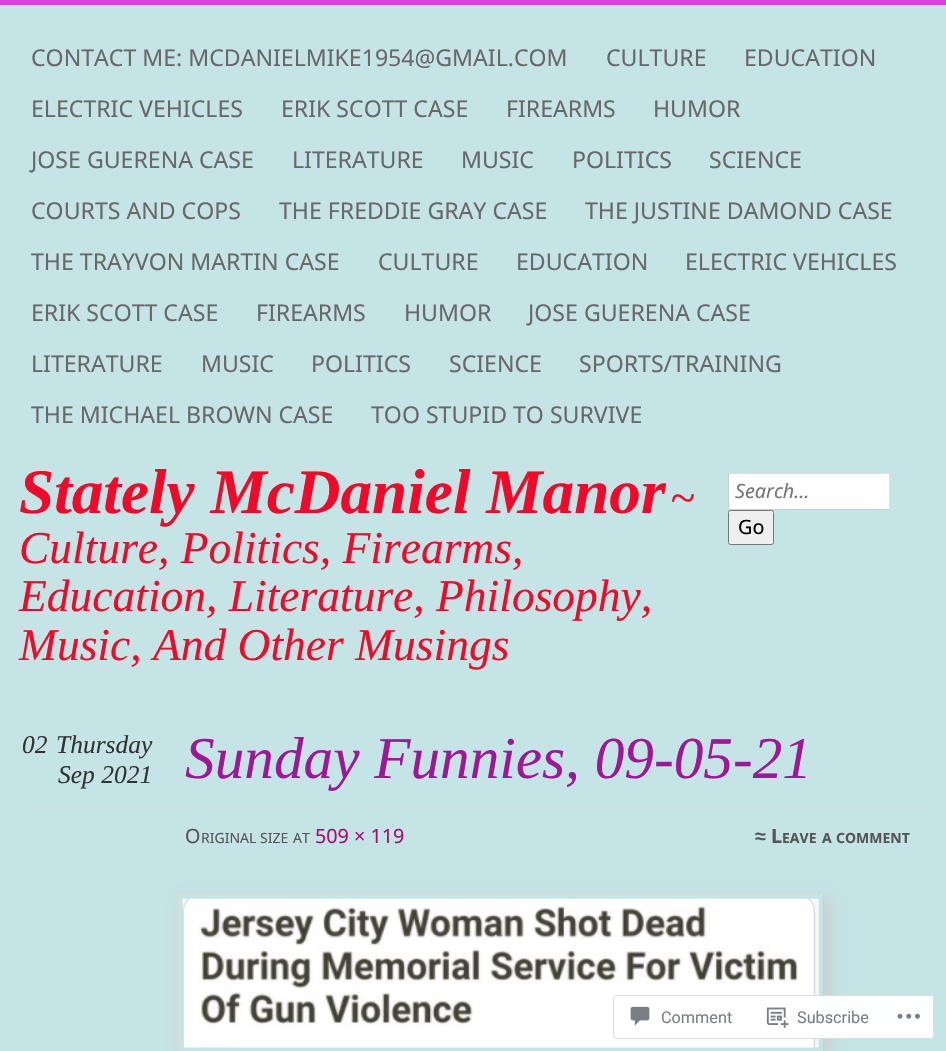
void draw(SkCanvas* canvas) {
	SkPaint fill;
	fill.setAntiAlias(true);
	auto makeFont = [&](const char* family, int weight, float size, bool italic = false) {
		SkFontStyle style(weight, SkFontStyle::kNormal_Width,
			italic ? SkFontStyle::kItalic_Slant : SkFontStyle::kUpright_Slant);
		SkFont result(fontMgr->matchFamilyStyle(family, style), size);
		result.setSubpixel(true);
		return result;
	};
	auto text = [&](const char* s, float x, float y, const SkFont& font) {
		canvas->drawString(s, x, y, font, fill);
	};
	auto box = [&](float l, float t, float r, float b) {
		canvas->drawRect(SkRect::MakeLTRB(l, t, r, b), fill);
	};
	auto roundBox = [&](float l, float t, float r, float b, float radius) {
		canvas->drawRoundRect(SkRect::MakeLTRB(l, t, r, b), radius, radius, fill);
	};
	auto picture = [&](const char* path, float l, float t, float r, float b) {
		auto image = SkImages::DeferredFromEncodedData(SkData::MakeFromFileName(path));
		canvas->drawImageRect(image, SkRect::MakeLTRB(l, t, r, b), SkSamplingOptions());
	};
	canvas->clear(0xFFC5E4E6);
	fill.setColor(0xFFDE40D3);
	box(0, 0, 946, 5);
	fill.setColor(0xFFFFFFFF);
	box(729, 474, 889, 509);
	fill.setColor(0xFFDDDDDD);
	box(728, 473, 890, 474);
	box(889, 473, 890, 510);
	fill.setColor(0xFFCCCCCC);
	box(728, 509, 890, 510);
	box(728, 473, 729, 510);
	fill.setColor(0xFFEFEFEF);
	canvas->drawRoundRect(SkRect::MakeLTRB(728.5f, 510.5f, 773.5f, 544.5f), 2, 2, fill);
	fill.setStyle(SkPaint::kStroke_Style);
	fill.setStrokeWidth(1);
	fill.setColor(0xFF767676);
	canvas->drawRoundRect(SkRect::MakeLTRB(728.5f, 510.5f, 773.5f, 544.5f), 2, 2, fill);
	fill.setStyle(SkPaint::kFill_Style);
	fill.setColor(0xFFCCE2E3);
	box(19, 809, 928, 810);
	canvas->save();
	canvas->clipPath(SkPathBuilder(SkPathFillType::kEvenOdd).moveTo(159, 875).lineTo(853, 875).lineTo(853, 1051).lineTo(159, 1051).close().moveTo(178, 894).lineTo(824, 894).lineTo(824, 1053).lineTo(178, 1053).close().detach(), true);
	fill.setColor(0xFFCCCCCC);
	fill.setMaskFilter(SkMaskFilter::MakeBlur(kNormal_SkBlurStyle, 7.5f));
	canvas->drawRect(SkRect::MakeLTRB(183, 899, 829, 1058), fill);
	fill.setMaskFilter(nullptr);
	canvas->restore();
	fill.setColor(0xFFDDDDDD);
	box(178, 894, 824, 895);
	fill.setColor(0xFFCCCCCC);
	box(823, 894, 824, 1051);
	fill.setColor(0xFFDDDDDD);
	box(178, 894, 179, 1051);
	picture("image0.png", 182, 898, 819, 1048);
	fill.setColor(0xFAFFFFFF);
	roundBox(613, 995, 934, 1039, 4);
	fill.setStyle(SkPaint::kStroke_Style);
	fill.setColor(0xFADCDCDE);
	canvas->drawRoundRect(SkRect::MakeLTRB(613.5f, 995.5f, 933.5f, 1038.5f), 3.5f, 3.5f, fill);
	picture("image1.png", 630, 1006, 650, 1026);
	picture("image2.png", 766, 1007, 789, 1028);
	picture("image3.png", 897, 1013, 920, 1019);
	auto font1 = makeFont("Noto Sans", 400, 23.1f);
	fill.setStyle(SkPaint::kFill_Style);
	fill.setColor(0xFF686868);
	text("CONTACT ME: MCDANIELMIKE1954@GMAIL.COM", 31, 66, font1);
	text("CULTURE", 606, 66, font1);
	text("EDUCATION", 744, 66, font1);
	text("ELECTRIC VEHICLES", 31, 117, font1);
	text("ERIK SCOTT CASE", 281, 117, font1);
	text("FIREARMS", 506, 117, font1);
	text("HUMOR", 653, 117, font1);
	text("JOSE GUERENA CASE", 31, 168, font1);
	text("LITERATURE", 292, 168, font1);
	text("MUSIC", 461, 168, font1);
	text("POLITICS", 572, 168, font1);
	text("SCIENCE", 709, 168, font1);
	text("COURTS AND COPS", 31, 219, font1);
	text("THE FREDDIE GRAY CASE", 279, 219, font1);
	text("THE JUSTINE DAMOND CASE", 585, 219, font1);
	text("THE TRAYVON MARTIN CASE", 31, 270, font1);
	text("CULTURE", 378, 270, font1);
	text("EDUCATION", 516, 270, font1);
	text("ELECTRIC VEHICLES", 685, 270, font1);
	text("ERIK SCOTT CASE", 31, 321, font1);
	text("FIREARMS", 256, 321, font1);
	text("HUMOR", 404, 321, font1);
	text("JOSE GUERENA CASE", 528, 321, font1);
	text("LITERATURE", 31, 372, font1);
	text("MUSIC", 201, 372, font1);
	text("POLITICS", 311, 372, font1);
	text("SCIENCE", 449, 372, font1);
	text("SPORTS/TRAINING", 579, 372, font1);
	text("THE MICHAEL BROWN CASE", 31, 423, font1);
	text("TOO STUPID TO SURVIVE", 371, 423, font1);
	auto font2 = makeFont("Liberation Serif", 700, 63.25f, true);
	fill.setColor(0xFFF10929);
	text("Stately McDaniel Manor", 19, 513, font2);
	auto font3 = makeFont("Liberation Serif", 400, 45.5f, true);
	text("~", 670, 513, font3);
	text("Culture, Politics, Firearms,", 19, 563, font3);
	text("Education, Literature, Philosophy,", 19, 611, font3);
	text("Music, And Other Musings", 19, 660, font3);
	auto font4 = makeFont("Noto Sans", 400, 19.75f, true);
	fill.setColor(0xFF777777);
	text("Search…", 735, 498, font4);
	auto font5 = makeFont("Noto Sans", 400, 19.75f);
	fill.setColor(0xFF000000);
	text("Go", 738, 534, font5);
	auto font6 = makeFont("Liberation Serif", 400, 25.5f, true);
	fill.setColor(0xFF333333);
	text("02", 22, 753, font6);
	text("Thursday", 56, 753, font6);
	text("Sep 2021", 58, 783, font6);
	auto font7 = makeFont("Liberation Serif", 400, 59.25f, true);
	fill.setColor(0xFF9F1796);
	text("Sunday Funnies, 09-05-21", 185, 778, font7);
	fill.setColor(0xFF555555);
	text("O", 185, 843, font5);
	auto font8 = makeFont("Noto Sans", 400, 14);
	text("RIGINAL", 201, 843, font8);
	text("SIZE", 260, 843, font8);
	text("AT", 293, 843, font8);
	fill.setColor(0xFFAB0B73);
	text("509 × 119", 315, 843, font5);
	auto font9 = makeFont("Liberation Sans", 700, 19.75f);
	fill.setColor(0xFF555555);
	text("≈", 755, 843, font9);
	auto font10 = makeFont("Noto Sans", 700, 19.75f);
	text("L", 771, 843, font10);
	auto font11 = makeFont("Noto Sans", 700, 14);
	text("EAVE", 782, 843, font11);
	text("A", 822, 843, font11);
	text("COMMENT", 836, 843, font11);
	auto font12 = makeFont("Roboto", 400, 16.25f);
	fill.setColor(0xFF7B7F85);
	text("Comment", 661, 1023, font12);
	text("Subscribe", 797, 1023, font12);
}
